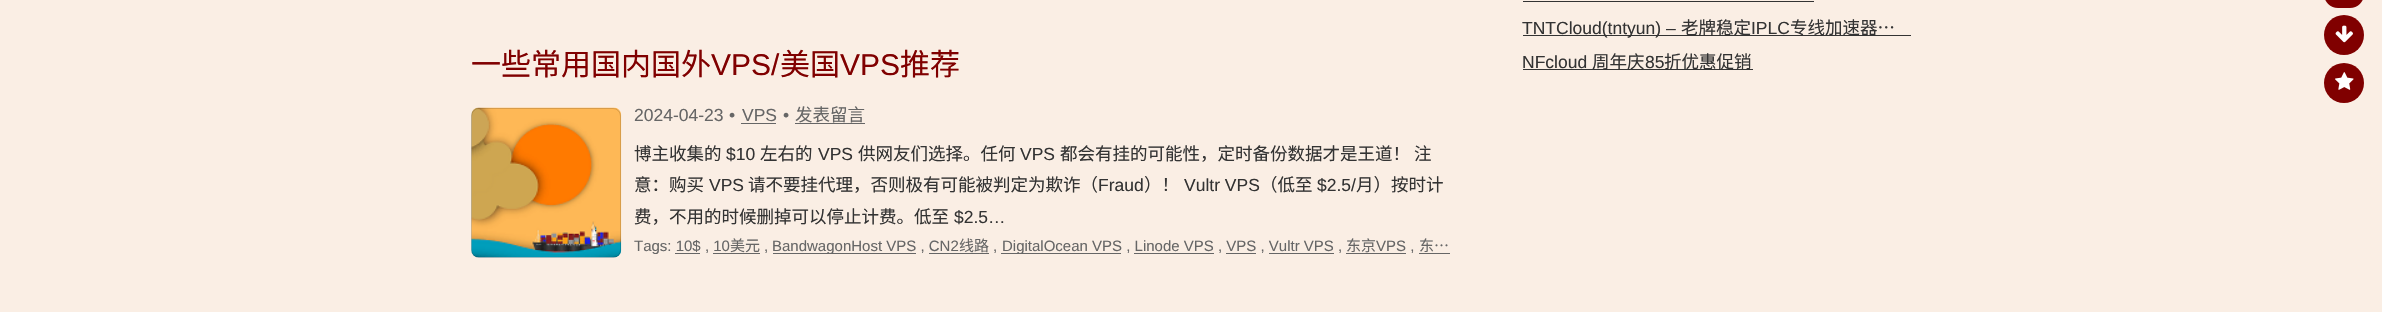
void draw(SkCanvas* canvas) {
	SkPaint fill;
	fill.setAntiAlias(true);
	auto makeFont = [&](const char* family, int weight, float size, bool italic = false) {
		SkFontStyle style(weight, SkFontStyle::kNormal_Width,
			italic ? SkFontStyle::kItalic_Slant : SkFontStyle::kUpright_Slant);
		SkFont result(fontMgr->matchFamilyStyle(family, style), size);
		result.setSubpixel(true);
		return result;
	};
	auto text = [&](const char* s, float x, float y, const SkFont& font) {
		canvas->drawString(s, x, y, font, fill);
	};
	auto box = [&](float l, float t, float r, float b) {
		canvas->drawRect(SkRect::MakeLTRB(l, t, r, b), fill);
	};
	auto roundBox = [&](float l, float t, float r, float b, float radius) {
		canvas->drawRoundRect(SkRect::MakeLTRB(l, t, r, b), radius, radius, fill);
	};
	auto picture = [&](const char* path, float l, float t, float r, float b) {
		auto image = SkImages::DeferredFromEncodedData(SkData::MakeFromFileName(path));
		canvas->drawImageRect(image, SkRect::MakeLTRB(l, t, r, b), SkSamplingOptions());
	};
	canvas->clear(0xFFFAEEE4);
	fill.setColor(0xFFF0F0F0);
	roundBox(471, 108, 621, 258, 8);
	picture("image0.png", 471, 107, 622, 258);
	fill.setStyle(SkPaint::kStroke_Style);
	fill.setStrokeWidth(1);
	fill.setColor(0x26000000);
	canvas->drawRoundRect(SkRect::MakeLTRB(471.5f, 108.5f, 620.5f, 257.5f), 7.5f, 7.5f, fill);
	fill.setStyle(SkPaint::kFill_Style);
	fill.setColor(0xFF666666);
	box(741, 123, 776, 124);
	box(795, 123, 865, 124);
	box(713, 253, 760, 254);
	box(773, 253, 916, 254);
	box(929, 253, 989, 254);
	box(1001, 253, 1121, 254);
	box(1346, 253, 1406, 254);
	box(1419, 253, 1450, 254);
	box(675, 253, 700, 254);
	box(1134, 253, 1214, 254);
	box(1226, 253, 1256, 254);
	box(1269, 253, 1334, 254);
	fill.setColor(0xFF333333);
	box(1523, 1, 1814, 2);
	box(1523, 35, 1911, 36);
	box(1523, 69, 1753, 70);
	fill.setColor(0xFF800000);
	roundBox(2324, -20, 2364, 8, 20);
	canvas->drawCircle(2344, 35, 20, fill);
	picture("image1.png", 2335, 25, 2353, 43);
	canvas->drawCircle(2344, 83, 20, fill);
	picture("image2.png", 2335, 72, 2354, 90);
	auto font1 = makeFont("Noto Sans CJK SC", 400, 30);
	text("一些常用国内国外", 471, 75, font1);
	auto font2 = makeFont("Liberation Sans", 400, 30);
	text("VPS/", 711, 75, font2);
	text("美国", 780, 75, font1);
	text("VPS", 840, 75, font2);
	text("推荐", 900, 75, font1);
	auto font3 = makeFont("Liberation Sans", 400, 17.5f);
	fill.setColor(0xFF666666);
	text("2024-04-23", 634, 121, font3);
	text("•", 729, 121, font3);
	text("VPS", 742, 121, font3);
	text("•", 783, 121, font3);
	auto font4 = makeFont("Noto Sans CJK SC", 400, 17.5f);
	text("发表留言", 795, 121, font4);
	fill.setColor(0xFF333333);
	text("博主收集的", 634, 160, font4);
	text("$10", 726, 160, font3);
	text("左右的", 760, 160, font4);
	text("VPS", 818, 160, font3);
	text("供网友们选择。任何", 858, 160, font4);
	text("VPS", 1020, 160, font3);
	text("都会有挂的可能性，定时备份数据才是王道！ 注", 1060, 160, font4);
	text("意：购买", 634, 191, font4);
	text("VPS", 709, 191, font3);
	text("请不要挂代理，否则极有可能被判定为欺诈（", 748, 191, font4);
	text("Fraud", 1098, 191, font3);
	text("）！", 1144, 191, font4);
	text("Vultr VPS", 1184, 191, font3);
	text("（低至", 1260, 191, font4);
	text("$2.5/", 1317, 191, font3);
	text("月）按时计", 1356, 191, font4);
	text("费，不用的时候删掉可以停止计费。低至", 634, 223, font4);
	text("$2.5…", 954, 223, font3);
	auto font5 = makeFont("Liberation Sans", 400, 15);
	fill.setColor(0xFF666666);
	text("Tags: 10$ , 10", 634, 251, font5);
	auto font6 = makeFont("Noto Sans CJK SC", 400, 15);
	text("美元", 730, 251, font6);
	text(",", 764, 251, font5);
	text("BandwagonHost VPS , CN2", 772, 251, font5);
	text("线路", 959, 251, font6);
	text(",", 993, 251, font5);
	text("DigitalOcean VPS , Linode VPS , VPS , Vultr VPS ,", 1002, 251, font5);
	text("东京", 1346, 251, font6);
	text("VPS ,", 1376, 251, font5);
	text("东…", 1419, 251, font6);
	fill.setColor(0xFF333333);
	text("TNTCloud(tntyun) –", 1522, 34, font3);
	text("老牌稳定", 1681, 34, font4);
	text("IPLC", 1751, 34, font3);
	text("专线加速器…", 1790, 34, font4);
	text("NFcloud", 1522, 68, font3);
	text("周年庆", 1592, 68, font4);
	text("85", 1645, 68, font3);
	text("折优惠促销", 1664, 68, font4);
}
